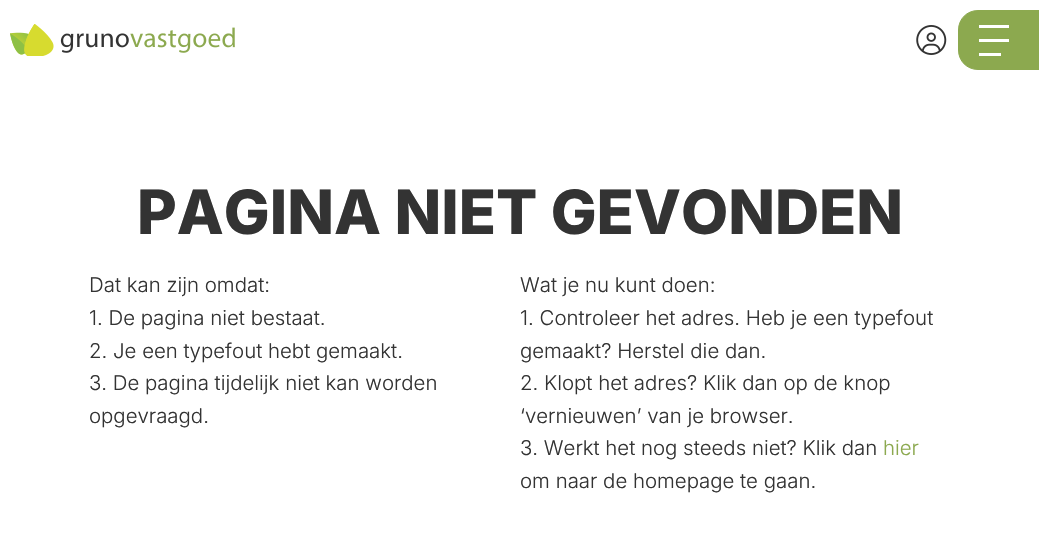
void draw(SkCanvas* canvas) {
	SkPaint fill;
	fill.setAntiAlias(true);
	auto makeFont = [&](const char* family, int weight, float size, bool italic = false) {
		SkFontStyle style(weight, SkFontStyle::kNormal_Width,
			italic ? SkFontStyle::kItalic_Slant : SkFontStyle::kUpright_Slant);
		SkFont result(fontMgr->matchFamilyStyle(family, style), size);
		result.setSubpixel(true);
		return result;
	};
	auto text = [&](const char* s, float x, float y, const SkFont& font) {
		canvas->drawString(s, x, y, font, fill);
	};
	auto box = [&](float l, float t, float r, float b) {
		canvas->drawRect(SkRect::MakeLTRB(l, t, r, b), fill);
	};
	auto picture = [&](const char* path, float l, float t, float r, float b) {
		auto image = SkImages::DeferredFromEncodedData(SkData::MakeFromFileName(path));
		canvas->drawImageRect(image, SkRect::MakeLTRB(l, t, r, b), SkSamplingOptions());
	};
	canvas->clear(0xFFFFFFFF);
	picture("image0.png", 10, 24, 235, 56);
	picture("image1.png", 916, 25, 947, 55);
	fill.setColor(0xFF8CA94F);
	canvas->drawPath(SkPathBuilder().moveTo(978, 10.5f).lineTo(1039.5f, 10.5f).lineTo(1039.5f, 69.5f).lineTo(978, 69.5f).cubicTo(967, 69.5f, 958.5f, 61, 958.5f, 50).lineTo(958.5f, 30).cubicTo(958.5f, 19, 967, 10.5f, 978, 10.5f).close().detach(), fill);
	fill.setStyle(SkPaint::kStroke_Style);
	fill.setStrokeWidth(1);
	canvas->drawPath(SkPathBuilder().moveTo(978, 10.5f).lineTo(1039.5f, 10.5f).lineTo(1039.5f, 69.5f).lineTo(978, 69.5f).cubicTo(967, 69.5f, 958.5f, 61, 958.5f, 50).lineTo(958.5f, 30).cubicTo(958.5f, 19, 967, 10.5f, 978, 10.5f).close().detach(), fill);
	fill.setStyle(SkPaint::kFill_Style);
	fill.setColor(0xFFFFFFFF);
	box(979, 25, 1009, 28);
	box(979, 39, 1009, 42);
	box(979, 53, 1001, 56);
	auto font1 = makeFont("Inter", 800, 61.1f);
	fill.setColor(0xFF333333);
	text("PAGINA NIET GEVONDEN", 137, 234, font1);
	auto font2 = makeFont("Inter", 300, 20.4f);
	text("Dat kan zijn omdat:", 89, 292, font2);
	text("1. De pagina niet bestaat.", 89, 325, font2);
	text("2. Je een typefout hebt gemaakt.", 89, 358, font2);
	text("3. De pagina tijdelijk niet kan worden", 89, 390, font2);
	text("opgevraagd.", 89, 423, font2);
	text("Wat je nu kunt doen:", 520, 292, font2);
	text("1. Controleer het adres. Heb je een typefout", 520, 325, font2);
	text("gemaakt? Herstel die dan.", 520, 358, font2);
	text("2. Klopt het adres? Klik dan op de knop", 520, 390, font2);
	text("‘vernieuwen’ van je browser.", 520, 423, font2);
	text("3. Werkt het nog steeds niet? Klik dan", 520, 455, font2);
	fill.setColor(0xFF8CA94F);
	text("hier", 883, 455, font2);
	fill.setColor(0xFF333333);
	text("om naar de homepage te gaan.", 520, 488, font2);
}
